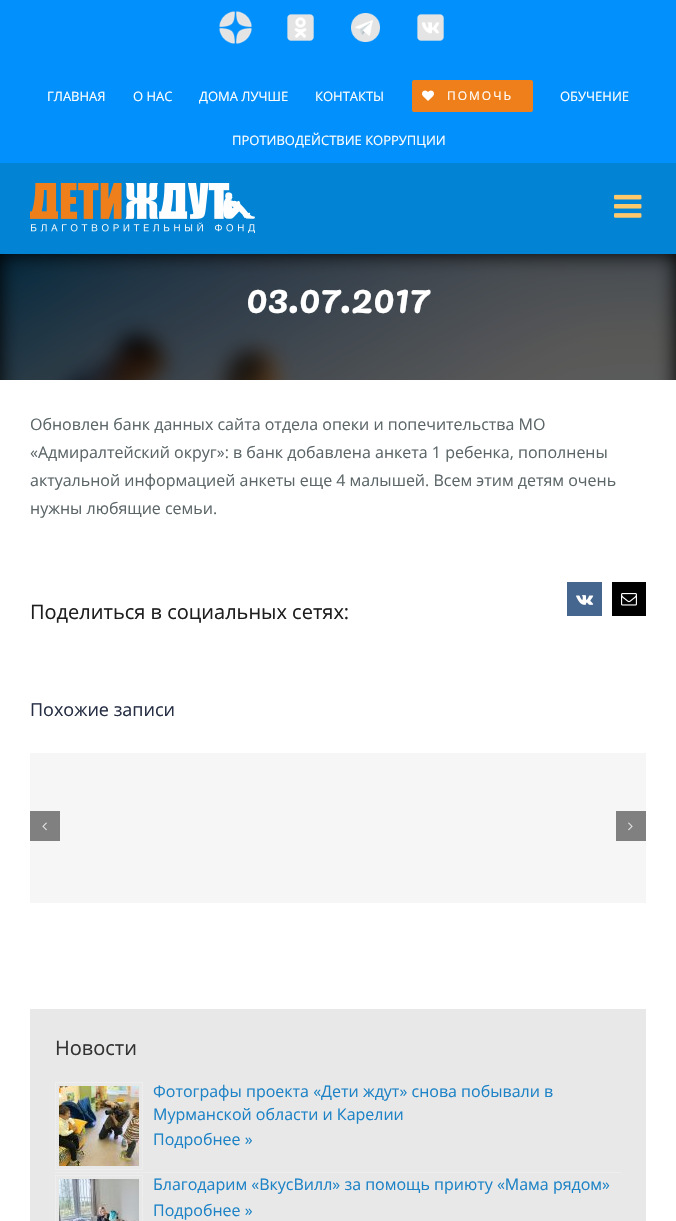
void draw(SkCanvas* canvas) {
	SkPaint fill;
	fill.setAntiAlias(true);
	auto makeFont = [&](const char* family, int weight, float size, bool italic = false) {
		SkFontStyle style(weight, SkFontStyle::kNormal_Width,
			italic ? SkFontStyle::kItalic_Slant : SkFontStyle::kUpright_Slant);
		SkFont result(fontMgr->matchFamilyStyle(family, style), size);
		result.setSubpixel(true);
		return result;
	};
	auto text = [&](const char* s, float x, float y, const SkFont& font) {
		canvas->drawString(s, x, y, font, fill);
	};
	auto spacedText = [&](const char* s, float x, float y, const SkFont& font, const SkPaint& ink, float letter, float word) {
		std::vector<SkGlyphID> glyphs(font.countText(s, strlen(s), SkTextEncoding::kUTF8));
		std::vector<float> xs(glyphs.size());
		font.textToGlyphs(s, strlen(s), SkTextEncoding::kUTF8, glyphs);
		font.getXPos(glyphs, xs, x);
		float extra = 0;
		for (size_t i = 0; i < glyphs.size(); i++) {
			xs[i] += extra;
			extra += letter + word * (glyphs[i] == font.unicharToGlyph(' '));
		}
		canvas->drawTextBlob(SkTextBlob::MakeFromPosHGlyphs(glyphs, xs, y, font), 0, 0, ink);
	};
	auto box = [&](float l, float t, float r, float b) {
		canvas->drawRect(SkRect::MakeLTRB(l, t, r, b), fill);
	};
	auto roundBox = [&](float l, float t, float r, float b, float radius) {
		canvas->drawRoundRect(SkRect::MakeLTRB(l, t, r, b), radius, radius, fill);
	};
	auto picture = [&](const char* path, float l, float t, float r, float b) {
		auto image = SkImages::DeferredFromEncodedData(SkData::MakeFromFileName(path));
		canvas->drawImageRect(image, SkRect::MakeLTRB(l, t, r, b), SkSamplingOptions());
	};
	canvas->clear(0xFFFFFFFF);
	fill.setColor(0xFF0290FC);
	box(0, 0, 676, 163);
	picture("image0.png", 219, 11, 252, 44);
	picture("image1.png", 287, 14, 314, 41);
	picture("image2.png", 351, 13, 380, 42);
	picture("image3.png", 417, 14, 444, 41);
	fill.setColor(0xFFEF7F1A);
	roundBox(412, 80, 533, 112, 2);
	picture("image4.png", 422, 90, 434, 101);
	fill.setColor(0xFF0283D3);
	box(0, 163, 676, 254);
	picture("image5.png", 30, 183, 255, 233);
	picture("image6.png", 614, 194, 642, 218);
	fill.setColor(0xFF000000);
	box(0, 254, 676, 380);
	picture("image7.png", 0, 254, 676, 380);
	fill.setColor(0xFF45668E);
	box(567, 582, 602, 616);
	picture("image8.png", 576, 595, 594, 605);
	fill.setColor(0xFF000000);
	box(612, 582, 646, 616);
	picture("image9.png", 621, 593, 637, 606);
	fill.setColor(0xFFF6F6F6);
	box(30, 753, 646, 903);
	fill.setColor(0xFF808080);
	box(30, 811, 60, 841);
	picture("image10.png", 42, 822, 47, 831);
	box(616, 811, 646, 841);
	picture("image11.png", 628, 822, 633, 831);
	fill.setColor(0xFFE8E8E8);
	box(30, 1009, 646, 1221);
	fill.setColor(0xFFEEEEEE);
	box(55, 1172, 621, 1173);
	fill.setStyle(SkPaint::kStroke_Style);
	fill.setStrokeWidth(1);
	canvas->drawRect(SkRect::MakeLTRB(55.5f, 1082.5f, 142.5f, 1169.5f), fill);
	picture("image12.png", 59, 1086, 139, 1166);
	canvas->drawRect(SkRect::MakeLTRB(55.5f, 1175.5f, 142.5f, 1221.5f), fill);
	picture("image13.png", 59, 1179, 139, 1221);
	auto font1 = makeFont("Open Sans", 400, 13);
	fill.setStyle(SkPaint::kFill_Style);
	fill.setColor(0xFFFFFFFF);
	text("ГЛАВНАЯ", 47, 101, font1);
	text("О НАС", 133, 101, font1);
	text("ДОМА ЛУЧШЕ", 199, 101, font1);
	text("КОНТАКТЫ", 315, 101, font1);
	auto font2 = makeFont("Open Sans", 400, 12);
	spacedText("ПОМОЧЬ", 447, 100, font2, fill, 2, 0);
	text("ОБУЧЕНИЕ", 560, 101, font1);
	text("ПРОТИВОДЕЙСТВИЕ КОРРУПЦИИ", 232, 145, font1);
	auto font3 = makeFont("Pacifico", 400, 40);
	text("03.07.2017", 246, 313, font3);
	auto font4 = makeFont("Open Sans", 400, 16);
	fill.setColor(0xFF5C6668);
	text("Обновлен банк данных сайта отдела опеки и попечительства МО", 30, 430, font4);
	text("«Адмиралтейский округ»: в банк добавлена анкета 1 ребенка, пополнены", 30, 458, font4);
	text("актуальной информацией анкеты еще 4 малышей. Всем этим детям очень", 30, 486, font4);
	text("нужны любящие семьи.", 30, 514, font4);
	auto font5 = makeFont("Open Sans", 400, 20);
	fill.setColor(0xFF1E1E1E);
	text("Поделиться в социальных сетях:", 30, 619, font5);
	auto font6 = makeFont("Open Sans", 400, 18);
	fill.setColor(0xFF262E44);
	text("Похожие записи", 30, 716, font6);
	fill.setColor(0xFF333333);
	text("Новости", 55, 1055, font5);
	fill.setColor(0xFF1D83C6);
	text("Фотографы проекта «Дети ждут» снова побывали в", 153, 1097, font4);
	text("Мурманской области и Карелии", 153, 1120, font4);
	text("Подробнее »", 153, 1145, font4);
	text("Благодарим «ВкусВилл» за помощь приюту «Мама рядом»", 153, 1190, font4);
	text("Подробнее »", 153, 1216, font4);
}
